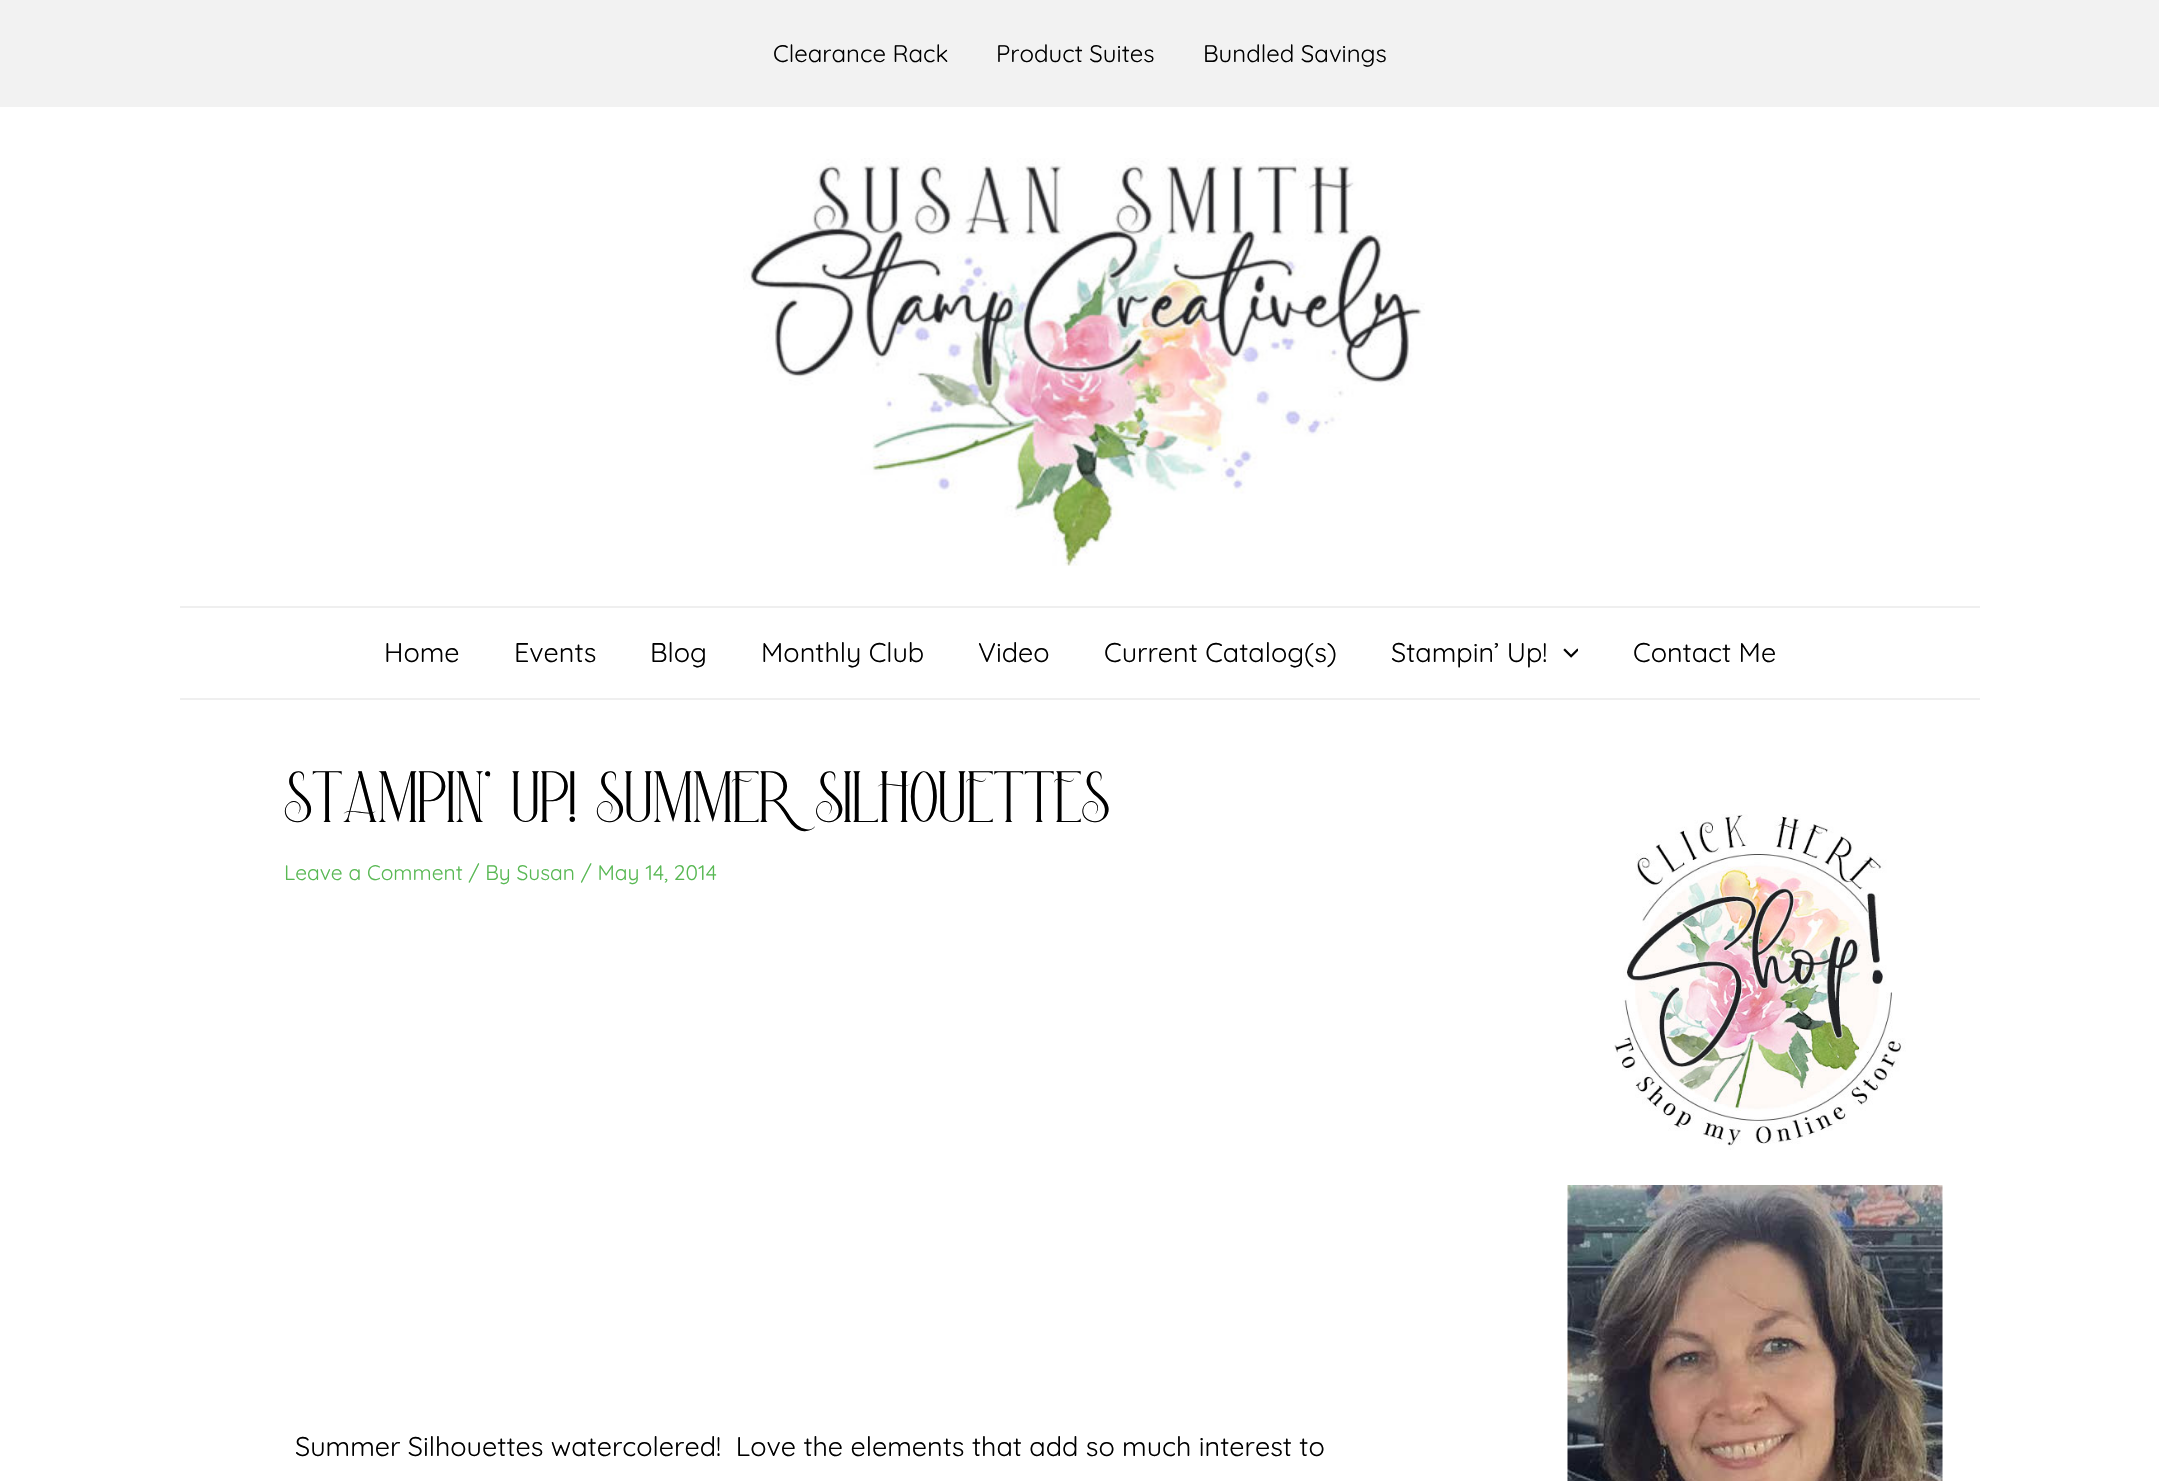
void draw(SkCanvas* canvas) {
	SkPaint fill;
	fill.setAntiAlias(true);
	auto makeFont = [&](const char* family, int weight, float size, bool italic = false) {
		SkFontStyle style(weight, SkFontStyle::kNormal_Width,
			italic ? SkFontStyle::kItalic_Slant : SkFontStyle::kUpright_Slant);
		SkFont result(fontMgr->matchFamilyStyle(family, style), size);
		result.setSubpixel(true);
		return result;
	};
	auto text = [&](const char* s, float x, float y, const SkFont& font) {
		canvas->drawString(s, x, y, font, fill);
	};
	auto box = [&](float l, float t, float r, float b) {
		canvas->drawRect(SkRect::MakeLTRB(l, t, r, b), fill);
	};
	auto picture = [&](const char* path, float l, float t, float r, float b) {
		auto image = SkImages::DeferredFromEncodedData(SkData::MakeFromFileName(path));
		canvas->drawImageRect(image, SkRect::MakeLTRB(l, t, r, b), SkSamplingOptions());
	};
	canvas->clear(0xFFFFFFFF);
	fill.setColor(0xFFF2F2F2);
	box(0, 0, 2159, 107);
	picture("image0.png", 743, 158, 1425, 566);
	fill.setColor(0xFFEFEFEF);
	box(180, 606, 1980, 608);
	box(180, 698, 1980, 700);
	picture("image1.png", 1563, 648, 1578, 658);
	picture("image2.png", 1613, 814, 1906, 1150);
	picture("image3.png", 1567, 1185, 1943, 1481);
	auto font1 = makeFont("Quicksand", 300, 24);
	fill.setColor(0xFF000000);
	text("Clearance Rack", 773, 62, font1);
	text("Product Suites", 996, 62, font1);
	text("Bundled Savings", 1203, 62, font1);
	auto font2 = makeFont("Quicksand", 300, 27);
	text("Home", 384, 662, font2);
	text("Events", 514, 662, font2);
	text("Blog", 650, 662, font2);
	text("Monthly Club", 761, 662, font2);
	text("Video", 978, 662, font2);
	text("Current Catalog(s)", 1104, 662, font2);
	text("Stampin’ Up!", 1391, 662, font2);
	text("Contact Me", 1633, 662, font2);
	auto font3 = makeFont("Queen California", 400, 57);
	text("STAMPIN’ UP! SUMMER SILHOUETTES", 284, 822, font3);
	auto font4 = makeFont("Quicksand", 300, 21);
	fill.setColor(0xFF58B853);
	text("Leave a Comment / By Susan / May 14, 2014", 284, 880, font4);
	fill.setColor(0xFF000000);
	text("Summer Silhouettes watercolered!  Love the elements that add so much interest to", 295, 1456, font2);
}
